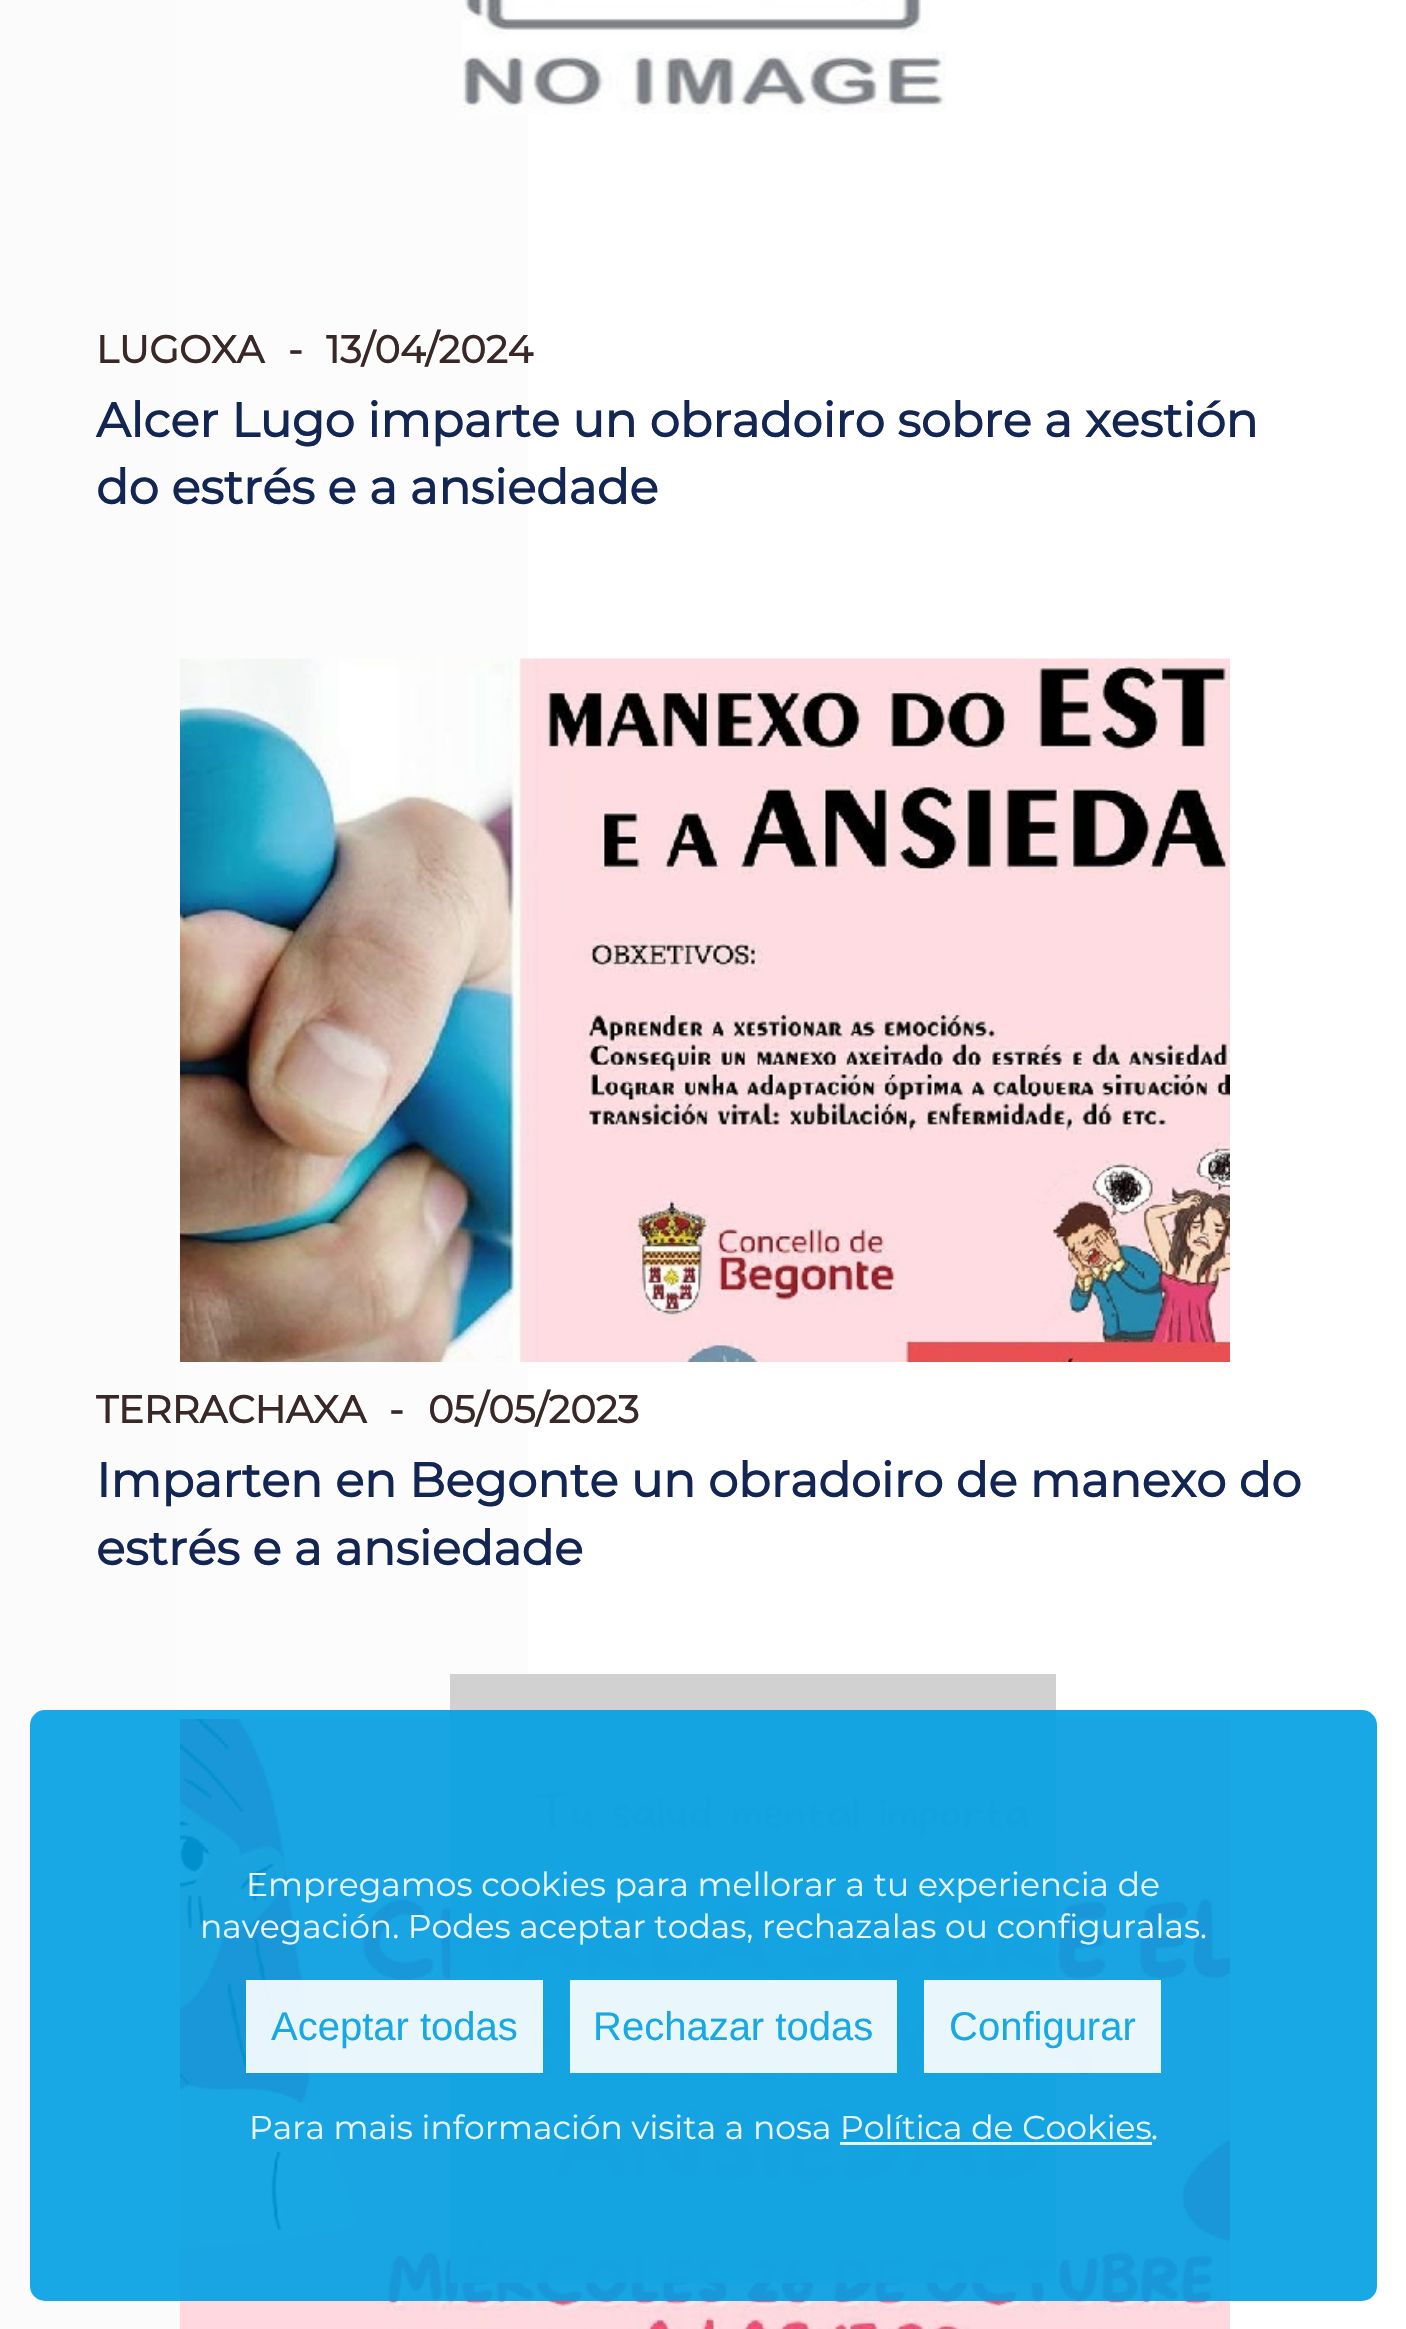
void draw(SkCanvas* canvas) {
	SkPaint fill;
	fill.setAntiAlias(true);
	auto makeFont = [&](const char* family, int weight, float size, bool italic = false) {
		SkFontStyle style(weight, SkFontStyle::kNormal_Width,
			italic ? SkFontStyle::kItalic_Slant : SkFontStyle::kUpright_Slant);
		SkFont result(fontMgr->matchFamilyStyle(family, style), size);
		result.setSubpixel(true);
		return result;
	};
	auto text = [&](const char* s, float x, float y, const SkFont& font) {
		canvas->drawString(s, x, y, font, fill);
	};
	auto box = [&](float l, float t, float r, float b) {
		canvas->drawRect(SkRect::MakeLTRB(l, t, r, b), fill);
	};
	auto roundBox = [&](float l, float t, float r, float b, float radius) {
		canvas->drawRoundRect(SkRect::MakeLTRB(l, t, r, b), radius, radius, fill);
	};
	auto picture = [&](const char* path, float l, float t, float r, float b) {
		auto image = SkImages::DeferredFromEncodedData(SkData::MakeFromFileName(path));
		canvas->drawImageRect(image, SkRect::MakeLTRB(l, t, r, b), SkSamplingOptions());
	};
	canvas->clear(0xFFFFFFFF);
	{
		const SkColor colors[] = {0xFFFBFBFB, 0xFFFDFDFD, 0xFFFFFFFF};
		const float stops[] = {0, 0.5f, 1};
		const SkPoint ends[] = {{0, 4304}, {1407, 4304}};
		fill.setShader(SkGradientShader::MakeLinear(ends, colors, stops, 3, SkTileMode::kClamp));
		fill.setAlpha(255);
	}
	box(0, 0, 528, 2329);
	picture("image0.png", 462, 0, 946, 114);
	picture("image1.png", 179, 658, 1230, 1362);
	picture("image2.png", 179, 1719, 1230, 2329);
	fill.setShader(nullptr);
	fill.setColor(0xE6CCCCCC);
	box(450, 1674, 1056, 2283);
	fill.setColor(0xE6009FE3);
	roundBox(30, 1710, 1377, 2301, 15);
	fill.setColor(0xE6FFFFFF);
	box(246, 1980, 543, 2073);
	box(570, 1980, 897, 2073);
	box(924, 1980, 1161, 2073);
	box(840, 2142, 1152, 2145);
	auto font1 = makeFont("Montserrat", 700, 38.5f);
	fill.setColor(0xFF382828);
	text("LUGOXA", 96, 363, font1);
	text("-", 288, 363, font1);
	text("13/04/2024", 326, 363, font1);
	auto font2 = makeFont("Montserrat", 700, 48);
	fill.setColor(0xFF132653);
	text("Alcer Lugo imparte un obradoiro sobre a xestión", 96, 437, font2);
	text("do estrés e a ansiedade", 96, 504, font2);
	fill.setColor(0xFF382828);
	text("TERRACHAXA", 96, 1423, font1);
	text("-", 389, 1423, font1);
	text("05/05/2023", 428, 1423, font1);
	fill.setColor(0xFF132653);
	text("Imparten en Begonte un obradoiro de manexo do", 96, 1497, font2);
	text("estrés e a ansiedade", 96, 1565, font2);
	auto font3 = makeFont("Montserrat", 100, 33);
	fill.setColor(0xFFE8F6FC);
	text("Empregamos cookies para mellorar a tu experiencia de", 246, 1896, font3);
	text("navegación. Podes aceptar todas, rechazalas ou configuralas.", 200, 1938, font3);
	auto font4 = makeFont("Liberation Sans", 400, 40);
	fill.setColor(0xFF17A8E5);
	text("Aceptar todas", 271, 2040, font4);
	text("Rechazar todas", 593, 2040, font4);
	text("Configurar", 949, 2040, font4);
	fill.setColor(0xFFE8F6FC);
	text("Para mais información visita a nosa Política de Cookies", 249, 2139, font3);
	fill.setColor(0xFFFFFBFC);
	text(".", 1151, 2139, font3);
}
